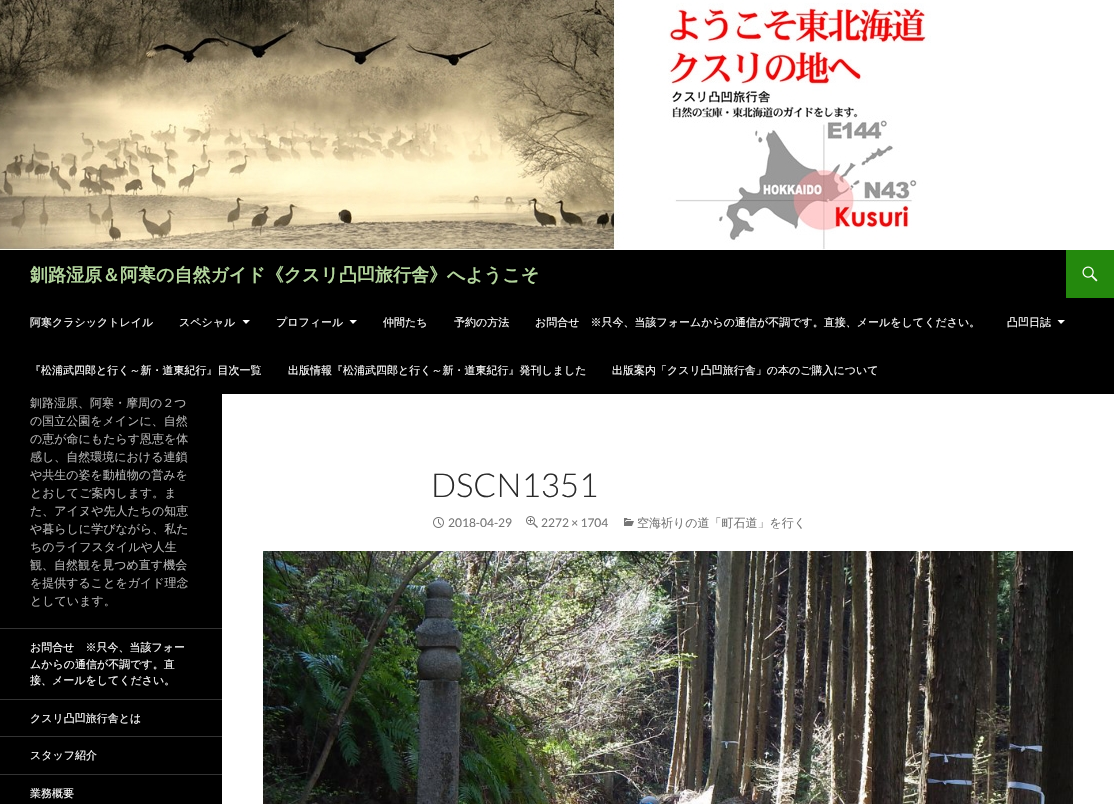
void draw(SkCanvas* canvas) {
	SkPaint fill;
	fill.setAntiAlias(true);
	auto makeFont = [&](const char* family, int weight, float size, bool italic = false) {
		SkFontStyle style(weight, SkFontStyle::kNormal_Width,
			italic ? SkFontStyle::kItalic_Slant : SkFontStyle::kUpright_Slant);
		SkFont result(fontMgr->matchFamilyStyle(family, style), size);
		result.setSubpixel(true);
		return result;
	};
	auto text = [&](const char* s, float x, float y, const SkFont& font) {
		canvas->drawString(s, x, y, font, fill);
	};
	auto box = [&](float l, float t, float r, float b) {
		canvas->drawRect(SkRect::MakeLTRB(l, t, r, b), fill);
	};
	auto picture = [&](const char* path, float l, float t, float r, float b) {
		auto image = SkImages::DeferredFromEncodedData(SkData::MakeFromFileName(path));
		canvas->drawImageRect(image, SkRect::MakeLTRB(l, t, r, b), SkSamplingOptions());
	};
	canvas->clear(0xFFFFFFFF);
	picture("image0.png", 0, 0, 931, 250);
	fill.setColor(0xFF000000);
	box(0, 250, 1114, 394);
	fill.setColor(0xFF24890D);
	box(1066, 250, 1114, 298);
	picture("image1.png", 1082, 266, 1098, 282);
	fill.setColor(0xFFFFFFFF);
	canvas->drawPath(SkPathBuilder().moveTo(242.5f, 320).lineTo(246, 324).lineTo(250, 320).close().detach(), fill);
	canvas->drawPath(SkPathBuilder().moveTo(349.5f, 320).lineTo(353, 324).lineTo(357, 320).close().detach(), fill);
	canvas->drawPath(SkPathBuilder().moveTo(1057.5f, 320).lineTo(1061, 324).lineTo(1065, 320).close().detach(), fill);
	fill.setColor(0xFF000000);
	box(0, 394, 222, 804);
	fill.setColor(0xFF333333);
	box(0, 628, 222, 629);
	box(0, 699, 222, 700);
	box(0, 736, 222, 737);
	box(0, 774, 222, 775);
	picture("image2.png", 433, 517, 444, 528);
	picture("image3.png", 526, 516, 538, 528);
	picture("image4.png", 624, 518, 634, 526);
	picture("image5.png", 263, 551, 1073, 804);
	auto font1 = makeFont("WenQuanYi Zen Hei", 700, 18);
	fill.setColor(0xFFB4D69E);
	text("釧路湿原＆阿寒の自然ガイド《クスリ凸凹旅行舎》へようこそ", 30, 281, font1);
	auto font2 = makeFont("WenQuanYi Zen Hei", 500, 11);
	fill.setColor(0xFFFFFFFF);
	text("阿寒クラシックトレイル", 30, 326, font2);
	text("スペシャル", 179, 326, font2);
	text("プロフィール", 276, 326, font2);
	text("仲間たち", 383, 326, font2);
	text("予約の方法", 454, 326, font2);
	text("お問合せ　※只今、当該フォームからの通信が不調です。直接、メールをしてください。", 535, 326, font2);
	text("凸凹日誌", 1007, 326, font2);
	text("『松浦武四郎と行く～新・道東紀行』目次一覧", 30, 374, font2);
	text("出版情報『松浦武四郎と行く～新・道東紀行』発刊しました", 288, 374, font2);
	text("出版案内「クスリ凸凹旅行舎」の本のご購入について", 612, 374, font2);
	auto font3 = makeFont("WenQuanYi Zen Hei", 500, 12);
	fill.setColor(0xFFB3B3B3);
	text("釧路湿原、阿寒・摩周の２つ", 30, 407, font3);
	text("の国立公園をメインに、自然", 30, 425, font3);
	text("の恵が命にもたらす恩恵を体", 30, 443, font3);
	text("感し、自然環境における連鎖", 30, 461, font3);
	text("や共生の姿を動植物の営みを", 30, 479, font3);
	text("とおしてご案内します。ま", 30, 497, font3);
	text("た、アイヌや先人たちの知恵", 30, 515, font3);
	text("や暮らしに学びながら、私た", 30, 533, font3);
	text("ちのライフスタイルや人生", 30, 551, font3);
	text("観、自然観を見つめ直す機会", 30, 569, font3);
	text("を提供することをガイド理念", 30, 587, font3);
	text("としています。", 30, 605, font3);
	fill.setColor(0xFFFFFFFF);
	text("お問合せ　※只今、当該フォー", 30, 651, font2);
	text("ムからの通信が不調です。直", 30, 668, font2);
	text("接、メールをしてください。", 30, 684, font2);
	text("クスリ凸凹旅行舎とは", 30, 722, font2);
	text("スタッフ紹介", 30, 759, font2);
	text("業務概要", 30, 797, font2);
	auto font4 = makeFont("Lato", 300, 33);
	fill.setColor(0xFF2B2B2B);
	text("DSCN1351", 431, 497, font4);
	auto font5 = makeFont("Lato", 400, 12);
	fill.setColor(0xFF767676);
	text("2018-04-29", 448, 527, font5);
	text("2272 × 1704", 541, 527, font5);
	text("空海祈りの道「町石道」を行く", 637, 527, font3);
}
